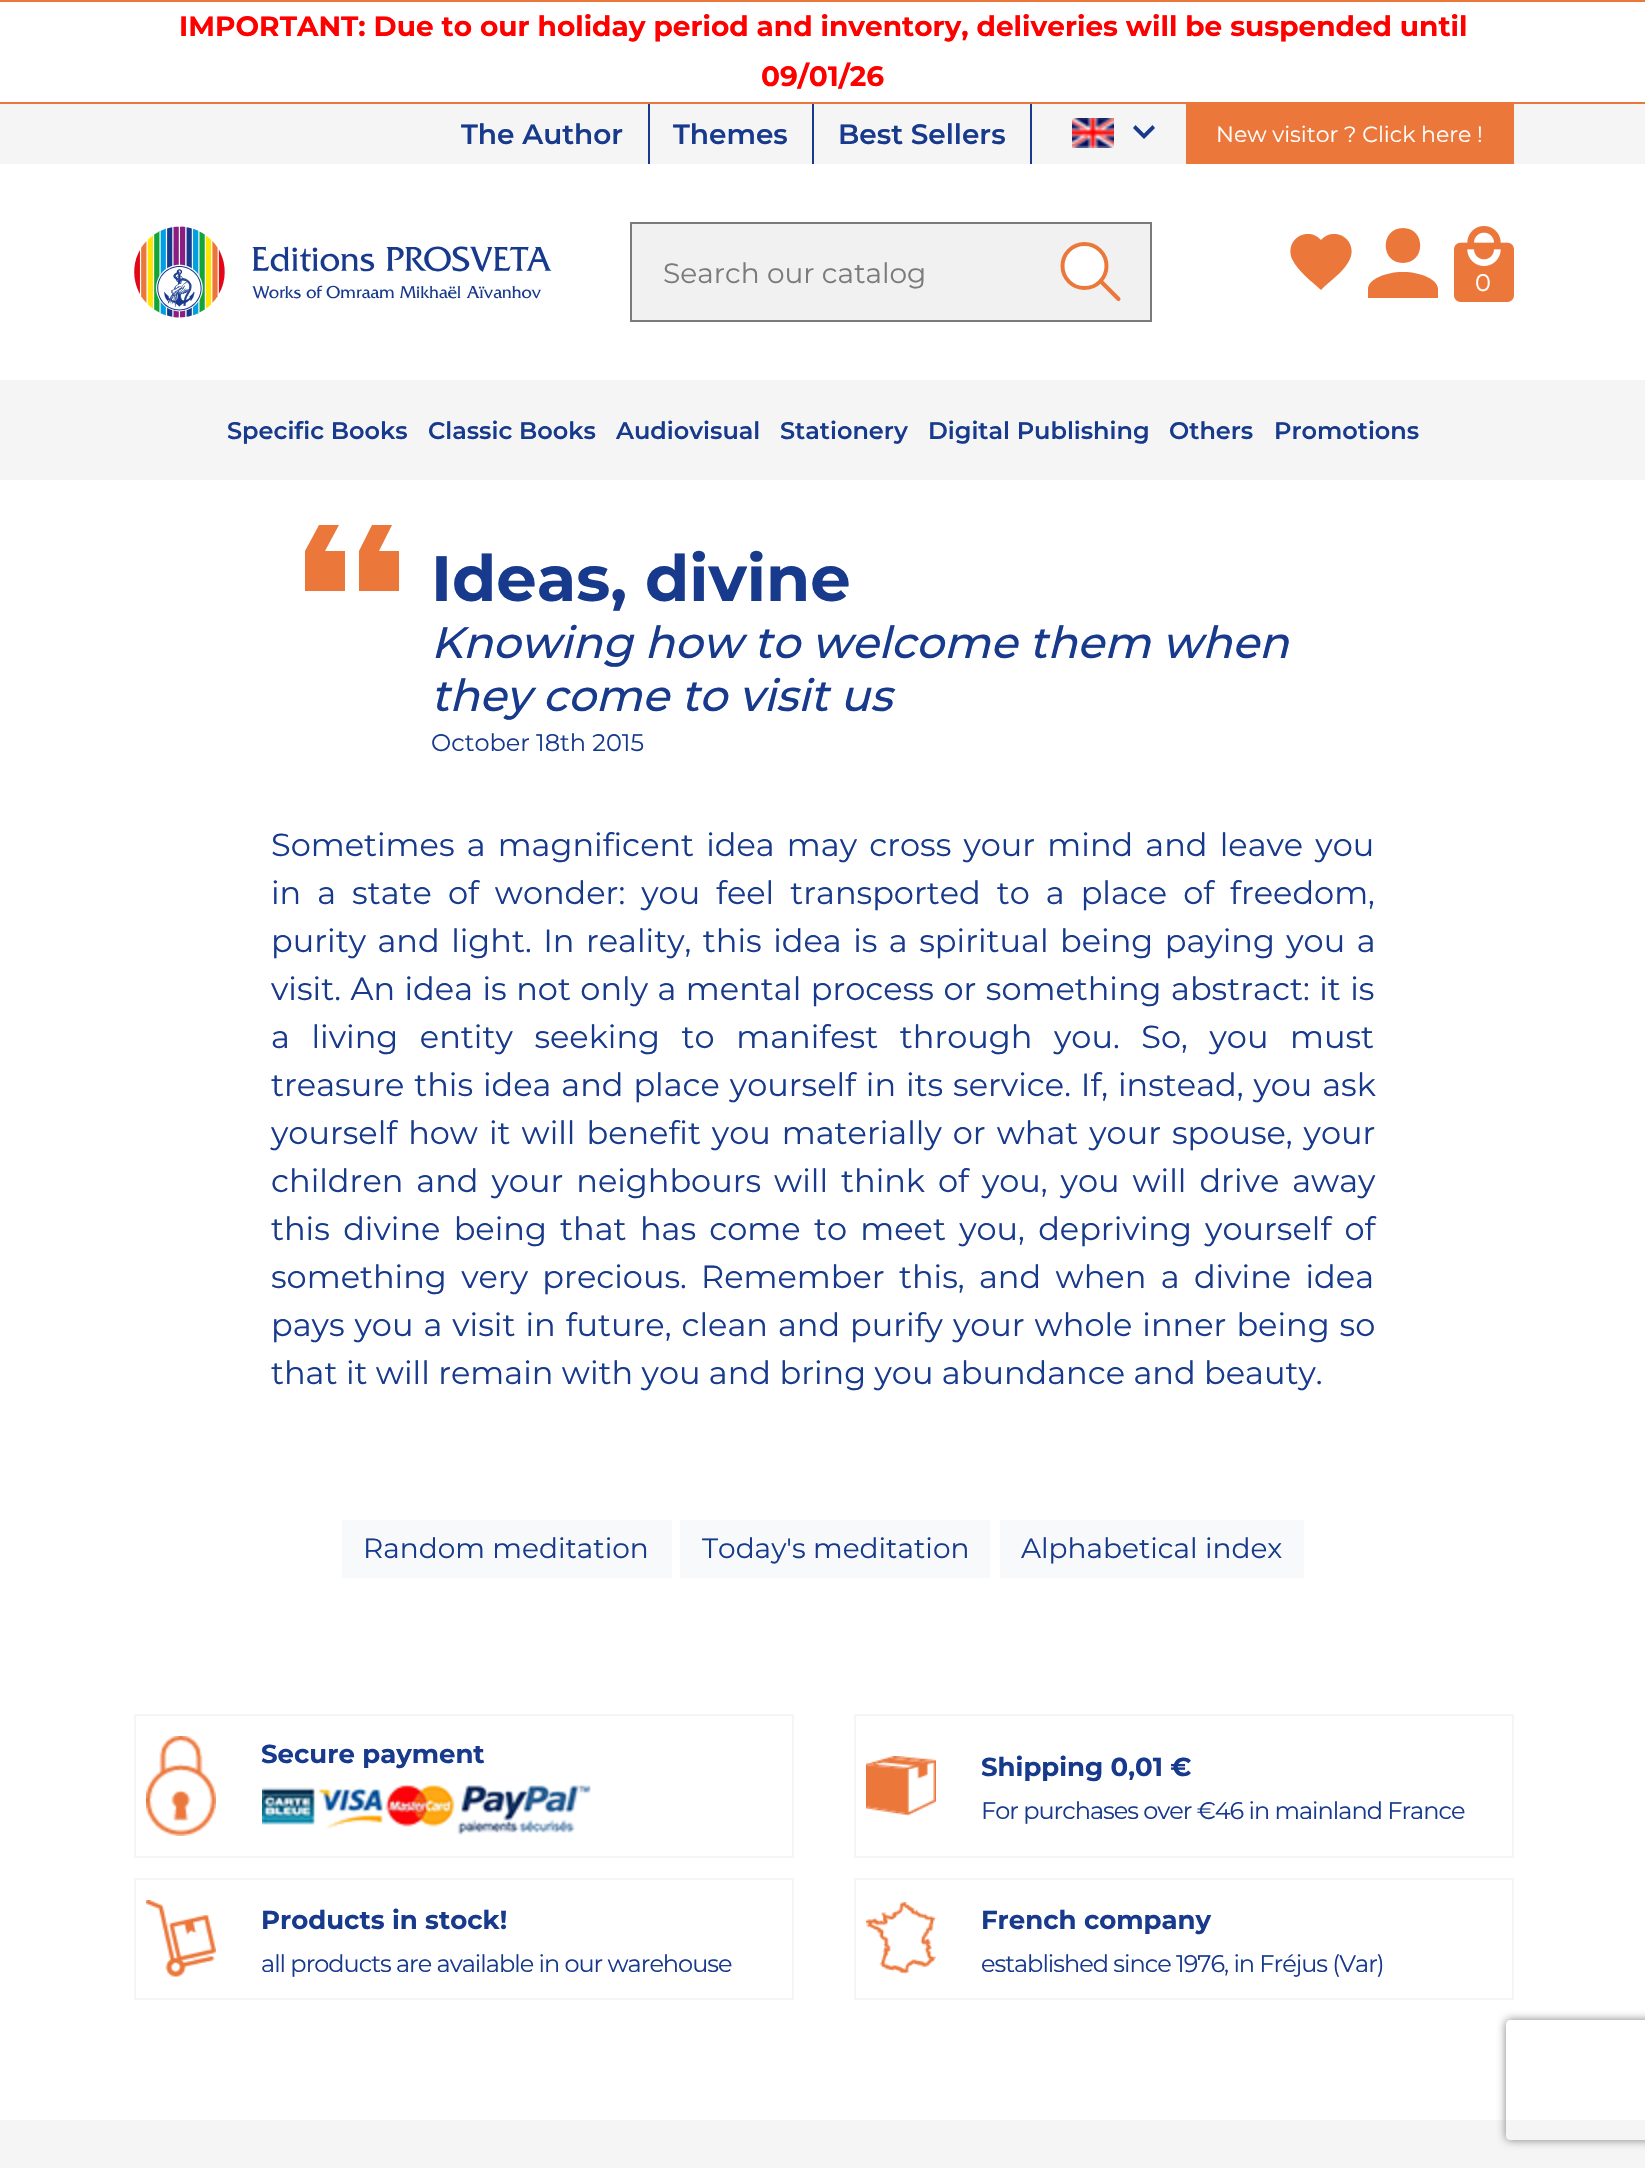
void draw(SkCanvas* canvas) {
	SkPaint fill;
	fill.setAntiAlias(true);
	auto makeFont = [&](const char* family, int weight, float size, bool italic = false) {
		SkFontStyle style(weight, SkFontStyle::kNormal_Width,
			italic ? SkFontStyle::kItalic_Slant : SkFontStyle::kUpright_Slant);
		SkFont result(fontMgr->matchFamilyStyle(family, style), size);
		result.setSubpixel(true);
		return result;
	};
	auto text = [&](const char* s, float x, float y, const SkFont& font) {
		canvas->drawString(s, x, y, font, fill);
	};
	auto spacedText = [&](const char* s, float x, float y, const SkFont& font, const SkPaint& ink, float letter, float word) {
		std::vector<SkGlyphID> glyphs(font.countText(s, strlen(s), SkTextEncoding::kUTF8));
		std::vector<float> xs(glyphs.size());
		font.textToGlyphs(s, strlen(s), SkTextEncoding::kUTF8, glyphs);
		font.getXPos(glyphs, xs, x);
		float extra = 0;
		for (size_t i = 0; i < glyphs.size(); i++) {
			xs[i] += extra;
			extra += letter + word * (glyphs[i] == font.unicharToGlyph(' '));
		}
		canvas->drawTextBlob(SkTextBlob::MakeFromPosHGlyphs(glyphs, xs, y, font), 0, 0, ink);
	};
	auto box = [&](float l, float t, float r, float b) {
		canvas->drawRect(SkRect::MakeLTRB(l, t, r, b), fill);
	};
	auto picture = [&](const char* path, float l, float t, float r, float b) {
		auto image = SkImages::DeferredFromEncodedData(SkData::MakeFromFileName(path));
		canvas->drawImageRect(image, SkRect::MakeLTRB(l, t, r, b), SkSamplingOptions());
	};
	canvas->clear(0xFFFFFFFF);
	fill.setStyle(SkPaint::kStroke_Style);
	fill.setStrokeWidth(2);
	fill.setColor(0xFFEB773B);
	canvas->drawRect(SkRect::MakeLTRB(-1, 1, 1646, 103), fill);
	fill.setStyle(SkPaint::kFill_Style);
	fill.setColor(0xFFF5F5F5);
	box(0, 104, 1645, 164);
	fill.setColor(0xFF183A8D);
	box(648, 104, 650, 164);
	box(812, 104, 814, 164);
	box(1030, 104, 1032, 164);
	picture("image0.png", 1072, 118, 1114, 148);
	canvas->drawPath(SkPathBuilder().moveTo(1135.5f, 125).lineTo(1144, 133.5f).lineTo(1152.5f, 125).lineTo(1155, 128).lineTo(1144, 139).lineTo(1133, 128).close().detach(), fill);
	fill.setColor(0xFFEB773B);
	box(1186, 104, 1514, 164);
	picture("image1.png", 134, 226, 552, 318);
	fill.setColor(0xFFF1F1F1);
	canvas->drawRect(SkRect::MakeLTRB(631, 223, 1151, 321), fill);
	fill.setStyle(SkPaint::kStroke_Style);
	fill.setColor(0xFF7B7B7B);
	canvas->drawRect(SkRect::MakeLTRB(631, 223, 1151, 321), fill);
	fill.setStyle(SkPaint::kFill_Style);
	fill.setColor(0xFFFFFFFF);
	canvas->drawCircle(1084.5f, 266, 24, fill);
	fill.setStyle(SkPaint::kStroke_Style);
	fill.setStrokeWidth(4);
	fill.setColor(0xFFEB773B);
	canvas->drawCircle(1084.5f, 266, 22, fill);
	fill.setStrokeCap(SkPaint::kRound_Cap);
	canvas->drawPath(SkPathBuilder().moveTo(1101.5f, 282).lineTo(1118.5f, 299).detach(), fill);
	canvas->save();
	canvas->clipRect(SkRect::MakeLTRB(1290, 234, 1352, 290));
	fill.setStyle(SkPaint::kFill_Style);
	canvas->drawPath(SkPathBuilder().moveTo(1321, 290).cubicTo(1311, 281, 1298, 271, 1292, 259).cubicTo(1284, 240, 1307, 225, 1321, 240).cubicTo(1335, 225, 1358, 240, 1350, 259).cubicTo(1345, 270, 1334, 278, 1325, 286).close().detach(), fill);
	canvas->restore();
	canvas->drawPath(SkPathBuilder().moveTo(1403, 228).cubicTo(1426, 228, 1426, 263, 1403, 263).cubicTo(1380, 263, 1380, 228, 1403, 228).moveTo(1403, 272).cubicTo(1422, 272, 1438, 280, 1438, 289).lineTo(1438, 298).lineTo(1368, 298).lineTo(1368, 289).cubicTo(1368, 280, 1384, 272, 1403, 272).close().detach(), fill);
	picture("image2.png", 1454, 226, 1514, 302);
	fill.setColor(0xFFF5F5F5);
	box(0, 380, 1645, 480);
	fill.setColor(0xFFEB773B);
	canvas->drawPath(SkPathBuilder().moveTo(339, 525).lineTo(325, 551).lineTo(345, 551).lineTo(345, 591).lineTo(305, 591).lineTo(305, 551).lineTo(319, 525).close().moveTo(392, 525).lineTo(379, 551).lineTo(399, 551).lineTo(399, 591).lineTo(359, 591).lineTo(359, 551).lineTo(372, 525).close().detach(), fill);
	fill.setColor(0xFFF8F9FA);
	box(342, 1520, 672, 1578);
	box(680, 1520, 990, 1578);
	box(1000, 1520, 1304, 1578);
	fill.setStyle(SkPaint::kStroke_Style);
	fill.setStrokeWidth(2);
	fill.setStrokeCap(SkPaint::kButt_Cap);
	fill.setColor(0xFFF5F5F5);
	canvas->drawRect(SkRect::MakeLTRB(135, 1715, 793, 1857), fill);
	picture("image3.png", 146, 1736, 216, 1836);
	picture("image4.png", 262, 1784, 591, 1835);
	canvas->drawRect(SkRect::MakeLTRB(855, 1715, 1513, 1857), fill);
	picture("image5.png", 866, 1756, 936, 1816);
	canvas->drawRect(SkRect::MakeLTRB(135, 1879, 793, 1999), fill);
	picture("image6.png", 146, 1900, 216, 1977);
	canvas->drawRect(SkRect::MakeLTRB(855, 1879, 1513, 1999), fill);
	picture("image7.png", 866, 1902, 936, 1974);
	fill.setStyle(SkPaint::kFill_Style);
	box(0, 2120, 1645, 2168);
	canvas->save();
	canvas->clipPath(SkPathBuilder(SkPathFillType::kEvenOdd).moveTo(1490, 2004).lineTo(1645, 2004).lineTo(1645, 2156).lineTo(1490, 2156).close().moveTo(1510, 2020).lineTo(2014, 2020).cubicTo(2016, 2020, 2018, 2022, 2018, 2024).lineTo(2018, 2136).cubicTo(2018, 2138, 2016, 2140, 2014, 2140).lineTo(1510, 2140).cubicTo(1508, 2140, 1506, 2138, 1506, 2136).lineTo(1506, 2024).cubicTo(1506, 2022, 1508, 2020, 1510, 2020).close().detach(), true);
	fill.setColor(0xFF808080);
	fill.setMaskFilter(SkMaskFilter::MakeBlur(kNormal_SkBlurStyle, 5));
	canvas->drawRoundRect(SkRect::MakeLTRB(1506, 2020, 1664, 2140), 4, 4, fill);
	fill.setMaskFilter(nullptr);
	canvas->restore();
	auto font1 = makeFont("Montserrat", 700, 28);
	fill.setColor(0xFFFF0000);
	text("IMPORTANT: Due to our holiday period and inventory, deliveries will be suspended until", 179, 36, font1);
	text("09/01/26", 761, 86, font1);
	auto font2 = makeFont("Montserrat", 600, 28);
	fill.setColor(0xFF183A8D);
	text("The Author", 461, 144, font2);
	text("Themes", 673, 144, font2);
	text("Best Sellers", 838, 144, font2);
	auto font3 = makeFont("Montserrat", 400, 22);
	fill.setColor(0xFFFFFFFF);
	text("New visitor ? Click here !", 1216, 142, font3);
	auto font4 = makeFont("Montserrat", 400, 28);
	fill.setColor(0xFF7B7B7B);
	text("Search our catalog", 663, 283, font4);
	auto font5 = makeFont("Montserrat", 400, 24);
	fill.setColor(0xFFFFFFFF);
	text("0", 1475, 291, font5);
	auto font6 = makeFont("Montserrat", 600, 24);
	fill.setColor(0xFF183A8D);
	text("Specific Books", 227, 439, font6);
	text("Classic Books", 428, 439, font6);
	text("Audiovisual", 616, 439, font6);
	text("Stationery", 780, 439, font6);
	text("Digital Publishing", 928, 439, font6);
	text("Others", 1169, 439, font6);
	text("Promotions", 1274, 439, font6);
	auto font7 = makeFont("Montserrat", 700, 64);
	text("Ideas, divine", 431, 601, font7);
	auto font8 = makeFont("Montserrat", 500, 44, true);
	text("Knowing how to welcome them when", 431, 658, font8);
	text("they come to visit us", 431, 711, font8);
	text("October 18th 2015", 431, 751, font5);
	auto font9 = makeFont("Montserrat", 400, 32);
	spacedText("Sometimes a magnificent idea may cross your mind and leave you", 271, 856, font9, fill, 0, 3.75f);
	spacedText("in a state of wonder: you feel transported to a place of freedom,", 271, 904, font9, fill, 0, 7.6f);
	spacedText("purity and light. In reality, this idea is a spiritual being paying you a", 271, 952, font9, fill, 0, 3.1f);
	spacedText("visit. An idea is not only a mental process or something abstract: it is", 271, 1000, font9, fill, 0, 1.1f);
	spacedText("a living entity seeking to manifest through you. So, you must", 271, 1048, font9, fill, 0, 13.25f);
	spacedText("treasure this idea and place yourself in its service. If, instead, you ask", 271, 1096, font9, fill, 0, 1.5f);
	spacedText("yourself how it will benefit you materially or what your spouse, your", 271, 1144, font9, fill, 0, 2.6f);
	spacedText("children and your neighbours will think of you, you will drive away", 271, 1192, font9, fill, 0, 4.6f);
	spacedText("this divine being that has come to meet you, depriving yourself of", 271, 1240, font9, fill, 0, 4.9f);
	spacedText("something very precious.", 271, 1288, font9, fill, 0, 6);
	spacedText("Remember this, and when a divine idea", 701, 1288, font9, fill, 0, 6);
	spacedText("pays you a visit in future, clean and purify your whole inner being so", 271, 1336, font9, fill, 0, 1.6f);
	text("that it will remain with you and bring you abundance and beauty.", 271, 1384, font9);
	text("Random meditation", 363, 1558, font4);
	text("Today's meditation", 702, 1558, font4);
	text("Alphabetical index", 1021, 1558, font4);
	auto font10 = makeFont("Montserrat", 700, 26);
	text("Secure payment", 261, 1763, font10);
	text("Shipping 0,01 €", 981, 1776, font10);
	spacedText("For purchases over €46 in mainland France", 981, 1819, font5, fill, -1, 0);
	text("Products in stock!", 261, 1929, font10);
	spacedText("all products are available in our warehouse", 261, 1972, font5, fill, -1, 0);
	text("French company", 981, 1929, font10);
	spacedText("established since 1976, in Fréjus (Var)", 981, 1972, font5, fill, -1, 0);
}
